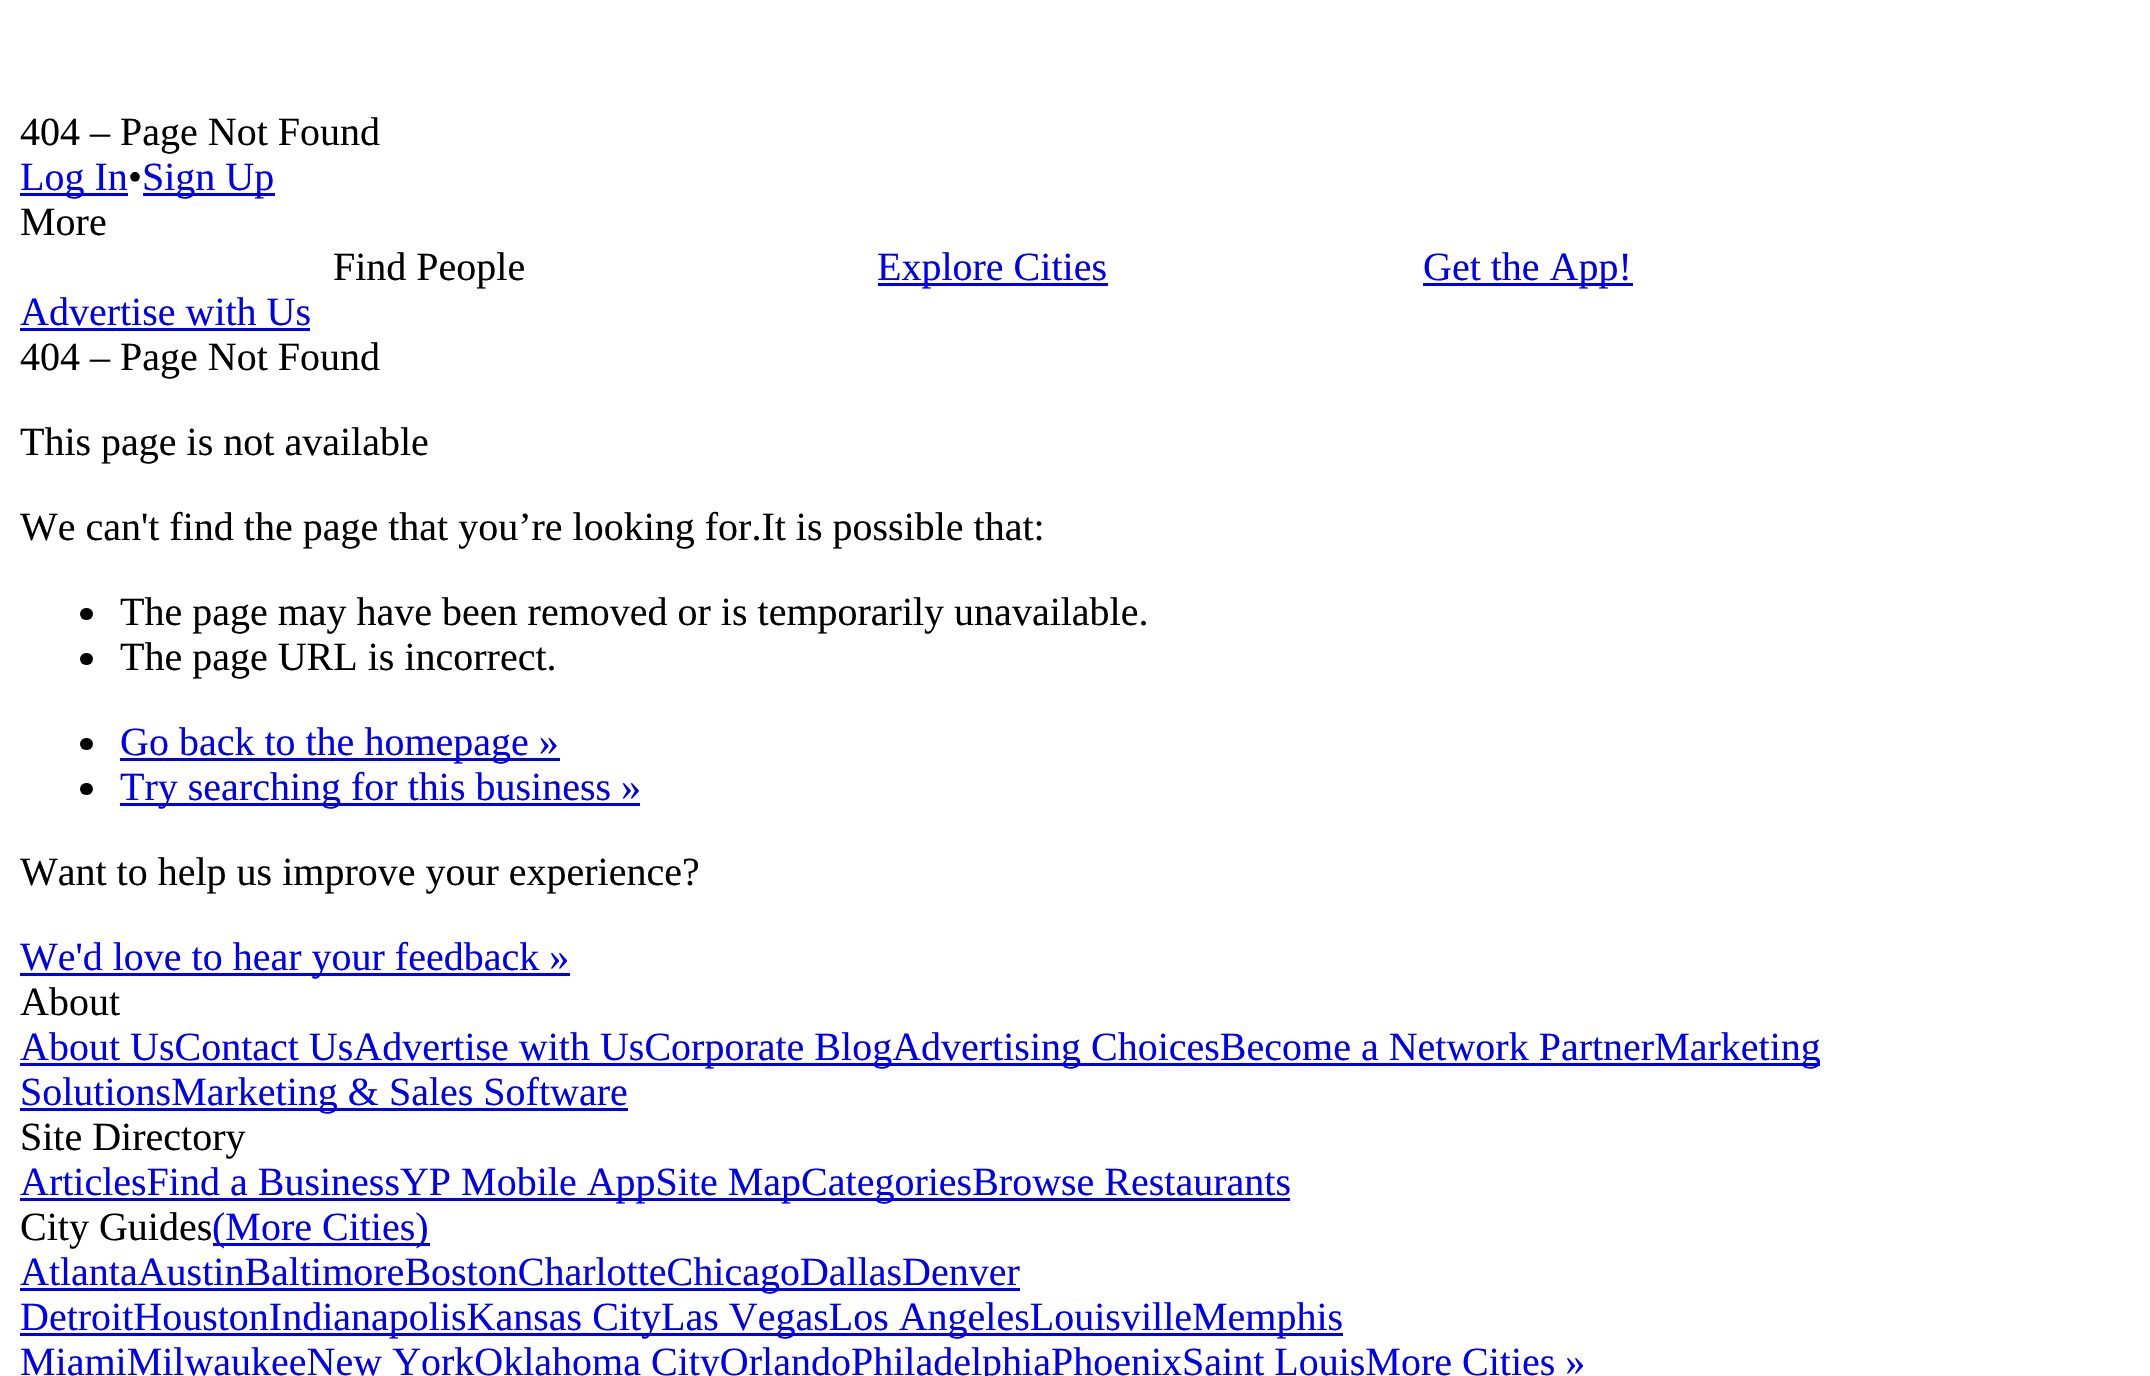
void draw(SkCanvas* canvas) {
	SkPaint fill;
	fill.setAntiAlias(true);
	auto makeFont = [&](const char* family, int weight, float size, bool italic = false) {
		SkFontStyle style(weight, SkFontStyle::kNormal_Width,
			italic ? SkFontStyle::kItalic_Slant : SkFontStyle::kUpright_Slant);
		SkFont result(fontMgr->matchFamilyStyle(family, style), size);
		result.setSubpixel(true);
		return result;
	};
	auto text = [&](const char* s, float x, float y, const SkFont& font) {
		canvas->drawString(s, x, y, font, fill);
	};
	auto box = [&](float l, float t, float r, float b) {
		canvas->drawRect(SkRect::MakeLTRB(l, t, r, b), fill);
	};
	auto roundBox = [&](float l, float t, float r, float b, float radius) {
		canvas->drawRoundRect(SkRect::MakeLTRB(l, t, r, b), radius, radius, fill);
	};
	canvas->clear(0xFFFFFFFF);
	fill.setColor(0xFF0000EE);
	box(20, 193, 128, 196);
	box(143, 193, 275, 196);
	box(878, 283, 1108, 286);
	box(1423, 283, 1633, 286);
	box(20, 328, 310, 331);
	fill.setColor(0xFF000000);
	roundBox(80, 608, 93, 620, 6);
	roundBox(80, 653, 93, 665, 6);
	roundBox(80, 738, 93, 750, 6);
	fill.setColor(0xFF0000EE);
	box(120, 758, 560, 761);
	fill.setColor(0xFF000000);
	roundBox(80, 783, 93, 795, 6);
	fill.setColor(0xFF0000EE);
	box(120, 803, 640, 806);
	box(20, 973, 570, 976);
	box(20, 1063, 1820, 1066);
	box(20, 1108, 628, 1111);
	box(20, 1198, 1290, 1201);
	box(213, 1243, 430, 1246);
	box(20, 1288, 1020, 1291);
	box(20, 1333, 660, 1336);
	box(660, 1333, 1343, 1336);
	auto font1 = makeFont("Liberation Serif", 400, 40);
	fill.setColor(0xFF000000);
	text("404 – Page Not Found", 20, 145, font1);
	fill.setColor(0xFF0000EE);
	text("Log In", 20, 190, font1);
	fill.setColor(0xFF000000);
	text("•", 128, 190, font1);
	fill.setColor(0xFF0000EE);
	text("Sign Up", 142, 190, font1);
	fill.setColor(0xFF000000);
	text("More", 20, 235, font1);
	text("Find People", 333, 280, font1);
	fill.setColor(0xFF0000EE);
	text("Explore Cities", 877, 280, font1);
	text("Get the App!", 1423, 280, font1);
	text("Advertise with Us", 20, 325, font1);
	fill.setColor(0xFF000000);
	text("404 – Page Not Found", 20, 370, font1);
	text("This page is not available", 20, 455, font1);
	text("We can't find the page that you’re looking for.It is possible that:", 20, 540, font1);
	text("The page may have been removed or is temporarily unavailable.", 120, 625, font1);
	text("The page URL is incorrect.", 120, 670, font1);
	fill.setColor(0xFF0000EE);
	text("Go back to the homepage »", 120, 755, font1);
	text("Try searching for this business »", 120, 800, font1);
	fill.setColor(0xFF000000);
	text("Want to help us improve your experience?", 20, 885, font1);
	fill.setColor(0xFF0000EE);
	text("We'd love to hear your feedback »", 20, 970, font1);
	fill.setColor(0xFF000000);
	text("About", 20, 1015, font1);
	fill.setColor(0xFF0000EE);
	text("About UsContact UsAdvertise with UsCorporate BlogAdvertising ChoicesBecome a Network PartnerMarketing", 20, 1060, font1);
	text("SolutionsMarketing & Sales Software", 20, 1105, font1);
	fill.setColor(0xFF000000);
	text("Site Directory", 20, 1150, font1);
	fill.setColor(0xFF0000EE);
	text("ArticlesFind a BusinessYP Mobile AppSite MapCategoriesBrowse Restaurants", 20, 1195, font1);
	fill.setColor(0xFF000000);
	text("City Guides", 20, 1240, font1);
	fill.setColor(0xFF0000EE);
	text("(More Cities)", 212, 1240, font1);
	text("AtlantaAustinBaltimoreBostonCharlotteChicagoDallasDenver", 20, 1285, font1);
	text("DetroitHoustonIndianapolisKansas City", 20, 1330, font1);
	text("Las VegasLos AngelesLouisvilleMemphis", 661, 1330, font1);
	text("MiamiMilwaukeeNew YorkOklahoma CityOrlandoPhiladelphiaPhoenixSaint LouisMore Cities »", 20, 1375, font1);
}
